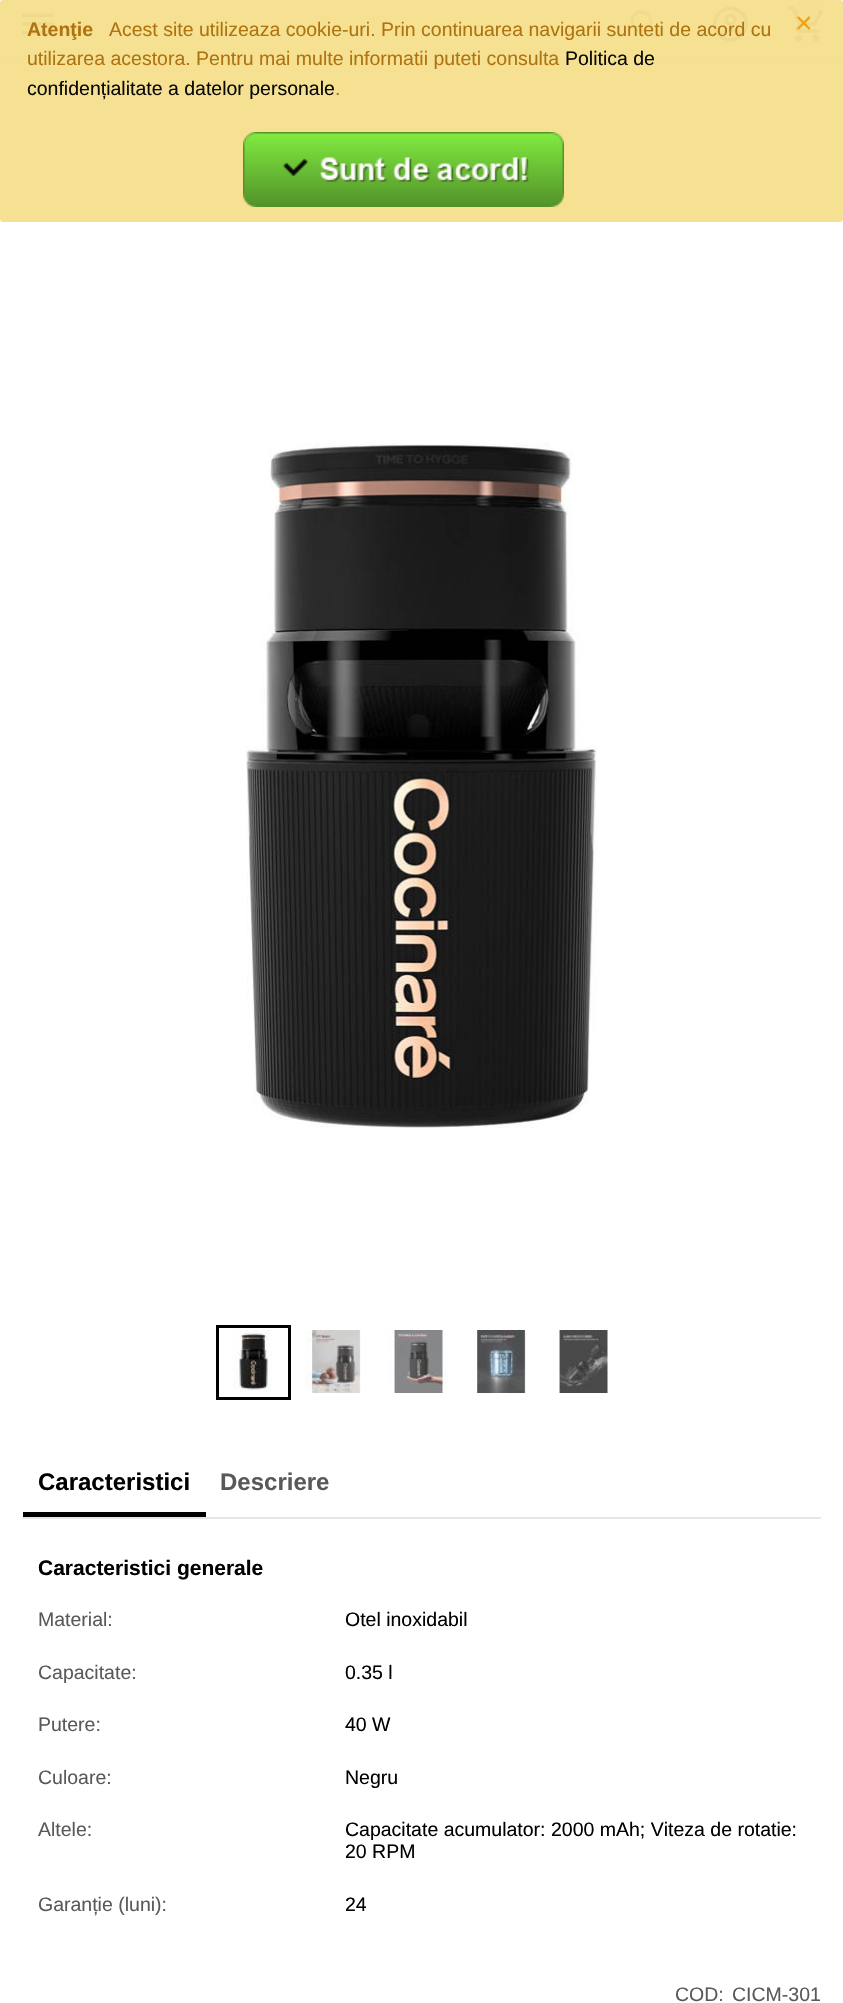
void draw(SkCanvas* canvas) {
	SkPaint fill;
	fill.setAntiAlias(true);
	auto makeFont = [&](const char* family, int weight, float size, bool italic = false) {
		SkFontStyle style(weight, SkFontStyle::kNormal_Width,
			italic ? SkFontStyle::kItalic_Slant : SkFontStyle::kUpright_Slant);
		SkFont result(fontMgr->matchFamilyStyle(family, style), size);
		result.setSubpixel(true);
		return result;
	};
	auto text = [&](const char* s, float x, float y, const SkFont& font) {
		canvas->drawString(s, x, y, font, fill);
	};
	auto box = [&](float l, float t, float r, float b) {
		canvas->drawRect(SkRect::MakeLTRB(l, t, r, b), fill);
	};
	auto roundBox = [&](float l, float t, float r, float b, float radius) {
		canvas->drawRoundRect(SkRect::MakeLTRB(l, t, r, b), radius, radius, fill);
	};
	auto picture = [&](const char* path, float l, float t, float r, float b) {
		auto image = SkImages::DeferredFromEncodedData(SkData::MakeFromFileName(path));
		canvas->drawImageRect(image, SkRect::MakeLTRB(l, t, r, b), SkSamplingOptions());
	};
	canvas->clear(0xFFFFFFFF);
	fill.setColor(0x1A000000);
	fill.setMaskFilter(SkMaskFilter::MakeBlur(kNormal_SkBlurStyle, 2));
	canvas->drawRect(SkRect::MakeLTRB(0, -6, 843, 66), fill);
	fill.setMaskFilter(nullptr);
	fill.setMaskFilter(SkMaskFilter::MakeBlur(kNormal_SkBlurStyle, 1));
	canvas->drawRect(SkRect::MakeLTRB(0, -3, 843, 63), fill);
	fill.setMaskFilter(nullptr);
	fill.setColor(0xFFFFFFFF);
	box(0, 0, 843, 62);
	picture("image1.png", 21, 13, 54, 35);
	fill.setColor(0xFFF3F3F3);
	box(95, 0, 674, 54);
	picture("image2.png", 630, 10, 657, 38);
	picture("image3.png", 713, 6, 748, 42);
	picture("image4.png", 788, 6, 823, 42);
	fill.setColor(0xFFE6E6E6);
	canvas->drawCircle(808.5f, 7.5f, 10.5f, fill);
	fill.setColor(0xF5F5E08C);
	roundBox(0, 0, 843, 222, 3);
	picture("image0.png", 243, 132, 564, 207);
	picture("image5.png", 246, 443, 597, 1128);
	fill.setStyle(SkPaint::kStroke_Style);
	fill.setStrokeWidth(3);
	fill.setColor(0xFF000000);
	canvas->drawRect(SkRect::MakeLTRB(217.5f, 1326.5f, 289.5f, 1398.5f), fill);
	picture("image6.png", 232, 1330, 272, 1391);
	picture("image7.png", 305, 1330, 361, 1393);
	picture("image8.png", 387, 1330, 448, 1393);
	picture("image9.png", 477, 1330, 526, 1393);
	picture("image10.png", 559, 1330, 608, 1393);
	fill.setStyle(SkPaint::kFill_Style);
	fill.setColor(0xFFE6E6E6);
	box(23, 1517, 821, 1519);
	fill.setColor(0xFF000000);
	box(23, 1512, 206, 1517);
	auto font1 = makeFont("Liberation Sans", 700, 19.5f);
	fill.setColor(0xFFAF7310);
	text("Atenţie", 27, 36, font1);
	auto font2 = makeFont("Liberation Sans", 400, 19.5f);
	text("Acest site utilizeaza cookie-uri. Prin continuarea navigarii sunteti de acord cu", 109, 36, font2);
	auto font3 = makeFont("Liberation Sans", 400, 30);
	fill.setColor(0xFFF39F17);
	text("×", 795, 33, font3);
	fill.setColor(0xFFAF7310);
	text("utilizarea acestora. Pentru mai multe informatii puteti consulta", 27, 65, font2);
	fill.setColor(0xFF0A0906);
	text("Politica de", 565, 65, font2);
	text("confidențialitate a datelor personale", 27, 95, font2);
	fill.setColor(0xFFAF7310);
	text(".", 335, 95, font2);
	auto font4 = makeFont("Liberation Sans", 700, 24);
	fill.setColor(0xFF000000);
	text("Caracteristici", 38, 1490, font4);
	fill.setColor(0xFF595959);
	text("Descriere", 220, 1490, font4);
	auto font5 = makeFont("Liberation Sans", 700, 21);
	fill.setColor(0xFF000000);
	text("Caracteristici generale", 38, 1575, font5);
	fill.setColor(0xFF595959);
	text("Material:", 38, 1626, font2);
	fill.setColor(0xFF000000);
	text("Otel inoxidabil", 345, 1626, font2);
	fill.setColor(0xFF595959);
	text("Capacitate:", 38, 1679, font2);
	fill.setColor(0xFF000000);
	text("0.35 l", 345, 1679, font2);
	fill.setColor(0xFF595959);
	text("Putere:", 38, 1731, font2);
	fill.setColor(0xFF000000);
	text("40 W", 345, 1731, font2);
	fill.setColor(0xFF595959);
	text("Culoare:", 38, 1784, font2);
	fill.setColor(0xFF000000);
	text("Negru", 345, 1784, font2);
	fill.setColor(0xFF595959);
	text("Altele:", 38, 1836, font2);
	fill.setColor(0xFF000000);
	text("Capacitate acumulator: 2000 mAh; Viteza de rotatie:", 345, 1836, font2);
	text("20 RPM", 345, 1858, font2);
	fill.setColor(0xFF595959);
	text("Garanție (luni):", 38, 1911, font2);
	fill.setColor(0xFF000000);
	text("24", 345, 1911, font2);
	fill.setColor(0xFF595959);
	text("COD:", 675, 2001, font2);
	text("CICM-301", 732, 2001, font2);
}
